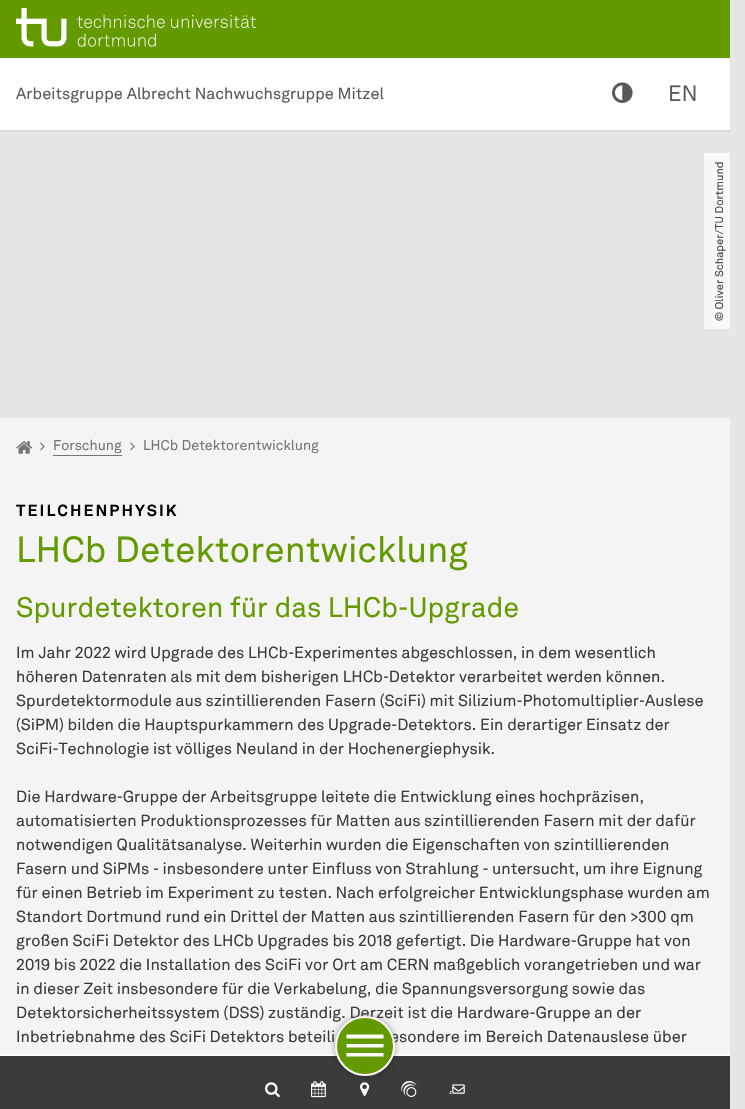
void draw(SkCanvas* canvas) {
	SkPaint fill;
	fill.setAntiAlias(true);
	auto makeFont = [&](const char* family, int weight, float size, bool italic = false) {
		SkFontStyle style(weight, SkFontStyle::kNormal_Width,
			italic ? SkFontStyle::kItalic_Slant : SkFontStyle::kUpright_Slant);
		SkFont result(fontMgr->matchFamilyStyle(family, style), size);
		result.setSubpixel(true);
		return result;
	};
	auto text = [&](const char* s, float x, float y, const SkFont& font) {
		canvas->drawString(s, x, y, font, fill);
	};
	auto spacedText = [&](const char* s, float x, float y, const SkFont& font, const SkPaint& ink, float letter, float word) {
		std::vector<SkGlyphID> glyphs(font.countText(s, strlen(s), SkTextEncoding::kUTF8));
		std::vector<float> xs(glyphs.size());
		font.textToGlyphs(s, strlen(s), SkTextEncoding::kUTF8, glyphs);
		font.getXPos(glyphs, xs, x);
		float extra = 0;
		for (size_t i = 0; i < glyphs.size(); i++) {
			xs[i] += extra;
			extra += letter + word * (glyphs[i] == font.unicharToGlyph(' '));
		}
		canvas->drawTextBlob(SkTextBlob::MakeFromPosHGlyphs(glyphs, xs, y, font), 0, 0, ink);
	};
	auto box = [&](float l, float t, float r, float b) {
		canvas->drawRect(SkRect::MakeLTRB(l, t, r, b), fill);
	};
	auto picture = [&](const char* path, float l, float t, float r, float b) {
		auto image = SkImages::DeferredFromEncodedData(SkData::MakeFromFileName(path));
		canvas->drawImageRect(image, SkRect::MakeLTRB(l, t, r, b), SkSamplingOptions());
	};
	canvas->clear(0xFFE6E6E6);
	fill.setColor(0xFF639A00);
	box(0, 0, 730, 58);
	picture("image0.png", 16, 8, 256, 47);
	fill.setColor(0xFFFFFFFF);
	box(0, 58, 730, 130);
	fill.setColor(0xFFD8D8D8);
	box(0, 130, 730, 132);
	picture("image1.png", 612, 82, 633, 103);
	picture("image2.png", 670, 85, 696, 101);
	fill.setColor(0xFFF8F8F8);
	box(704, 153, 730, 329);
	fill.setColor(0xFFF4F4F4);
	box(0, 418, 730, 1054);
	picture("image3.png", 16, 441, 32, 454);
	picture("image4.png", 40, 442, 45, 451);
	fill.setColor(0xFF757575);
	box(53, 455, 122, 456);
	picture("image4.png", 130, 442, 135, 451);
	fill.setColor(0xFF3B3B3B);
	box(0, 1056, 730, 1109);
	fill.setColor(0xFFFFFFFF);
	box(0, 1054, 730, 1056);
	picture("image7.png", 360, 1082, 370, 1096);
	picture("image8.png", 401, 1081, 417, 1097);
	fill.setColor(0x33000000);
	fill.setMaskFilter(SkMaskFilter::MakeBlur(kNormal_SkBlurStyle, 2));
	canvas->drawRoundRect(SkRect::MakeLTRB(333, 1014, 397, 1078), 32, 32, fill);
	fill.setMaskFilter(nullptr);
	picture("image5.png", 265, 1082, 280, 1098);
	picture("image6.png", 311, 1081, 326, 1098);
	picture("image9.png", 449, 1084, 465, 1094);
	auto font1 = makeFont("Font", 400, 16);
	fill.setColor(0xFF595959);
	text("Arbeitsgruppe Albrecht Nachwuchsgruppe Mitzel", 16, 99, font1);
	auto font2 = makeFont("Font", 400, 11);
	fill.setColor(0xFF454545);
	canvas->save();
	canvas->rotate(-90, 723, 321);
	text("© Oliver Schaper/TU Dortmund", 723, 321, font2);
	canvas->restore();
	auto font3 = makeFont("Font", 400, 14);
	fill.setColor(0xFF757575);
	text("Forschung", 53, 450, font3);
	text("LHCb Detektorentwicklung", 143, 450, font3);
	auto font4 = makeFont("Font", 700, 16);
	fill.setColor(0xFF000000);
	spacedText("TEILCHENPHYSIK", 16, 516, font4, fill, 2, 0);
	auto font5 = makeFont("Font", 400, 36);
	fill.setColor(0xFF639A00);
	text("LHCb Detektorentwicklung", 16, 562, font5);
	auto font6 = makeFont("Font", 400, 28);
	text("Spurdetektoren für das LHCb-Upgrade", 16, 617, font6);
	fill.setColor(0xFF3B3B3B);
	text("Im Jahr 2022 wird Upgrade des LHCb-Experimentes abgeschlossen, in dem wesentlich", 16, 658, font1);
	text("höheren Datenraten als mit dem bisherigen LHCb-Detektor verarbeitet werden können.", 16, 682, font1);
	text("Spurdetektormodule aus szintillierenden Fasern (SciFi) mit Silizium-Photomultiplier-Auslese", 16, 706, font1);
	text("(SiPM) bilden die Hauptspurkammern des Upgrade-Detektors. Ein derartiger Einsatz der", 16, 730, font1);
	text("SciFi-Technologie ist völliges Neuland in der Hochenergiephysik.", 16, 754, font1);
	text("Die Hardware-Gruppe der Arbeitsgruppe leitete die Entwicklung eines hochpräzisen,", 16, 802, font1);
	text("automatisierten Produktionsprozesses für Matten aus szintillierenden Fasern mit der dafür", 16, 826, font1);
	text("notwendigen Qualitätsanalyse. Weiterhin wurden die Eigenschaften von szintillierenden", 16, 850, font1);
	text("Fasern und SiPMs - insbesondere unter Einfluss von Strahlung - untersucht, um ihre Eignung", 16, 874, font1);
	text("für einen Betrieb im Experiment zu testen. Nach erfolgreicher Entwicklungsphase wurden am", 16, 898, font1);
	text("Standort Dortmund rund ein Drittel der Matten aus szintillierenden Fasern für den >300 qm", 16, 922, font1);
	text("großen SciFi Detektor des LHCb Upgrades bis 2018 gefertigt. Die Hardware-Gruppe hat von", 16, 946, font1);
	text("2019 bis 2022 die Installation des SciFi vor Ort am CERN maßgeblich vorangetrieben und war", 16, 970, font1);
	text("in dieser Zeit insbesondere für die Verkabelung, die Spannungsversorgung sowie das", 16, 994, font1);
	text("Detektorsicherheitssystem (DSS) zuständig. Derzeit ist die Hardware-Gruppe an der", 16, 1018, font1);
	text("Inbetriebnahme des SciFi Detektors beteili", 16, 1042, font1);
	text("esondere im Bereich Datenauslese über", 390, 1042, font1);
	fill.setColor(0xFF639A00);
	canvas->drawCircle(365, 1046, 29, fill);
	fill.setStyle(SkPaint::kStroke_Style);
	fill.setStrokeWidth(2);
	fill.setColor(0xFFFFFFFF);
	canvas->drawCircle(365, 1046, 29, fill);
	fill.setStyle(SkPaint::kFill_Style);
	canvas->drawPath(SkPathBuilder().moveTo(346.5f, 1034.5f).lineTo(383.5f, 1034.5f).lineTo(383.5f, 1038.5f).lineTo(346.5f, 1038.5f).close().moveTo(346.5f, 1044).lineTo(383.5f, 1044).lineTo(383.5f, 1047.5f).lineTo(346.5f, 1047.5f).close().moveTo(346.5f, 1053).lineTo(383.5f, 1053).lineTo(383.5f, 1056.5f).lineTo(346.5f, 1056.5f).close().detach(), fill);
}
